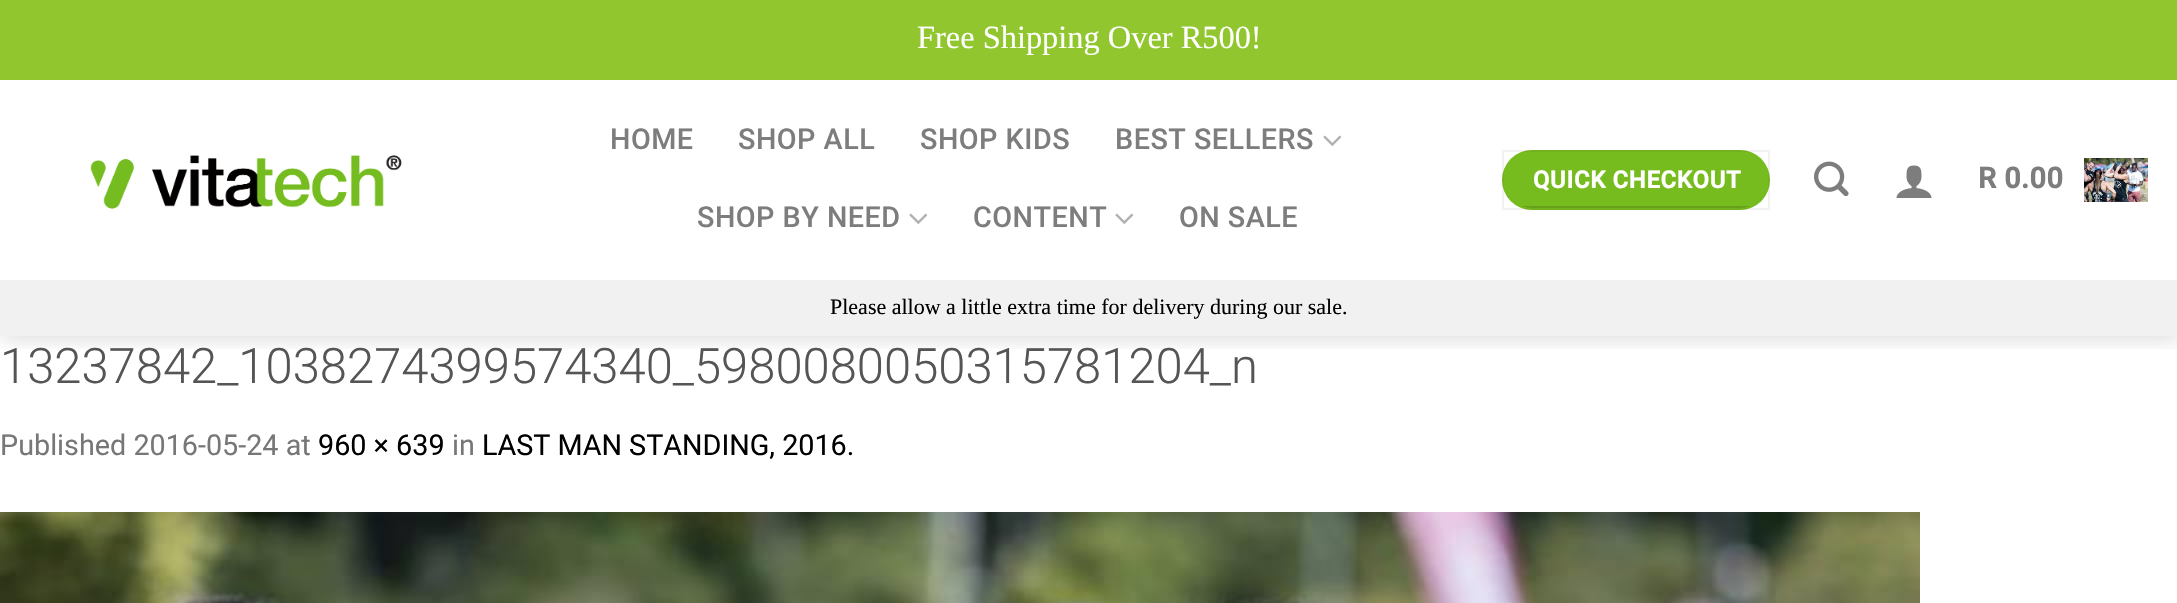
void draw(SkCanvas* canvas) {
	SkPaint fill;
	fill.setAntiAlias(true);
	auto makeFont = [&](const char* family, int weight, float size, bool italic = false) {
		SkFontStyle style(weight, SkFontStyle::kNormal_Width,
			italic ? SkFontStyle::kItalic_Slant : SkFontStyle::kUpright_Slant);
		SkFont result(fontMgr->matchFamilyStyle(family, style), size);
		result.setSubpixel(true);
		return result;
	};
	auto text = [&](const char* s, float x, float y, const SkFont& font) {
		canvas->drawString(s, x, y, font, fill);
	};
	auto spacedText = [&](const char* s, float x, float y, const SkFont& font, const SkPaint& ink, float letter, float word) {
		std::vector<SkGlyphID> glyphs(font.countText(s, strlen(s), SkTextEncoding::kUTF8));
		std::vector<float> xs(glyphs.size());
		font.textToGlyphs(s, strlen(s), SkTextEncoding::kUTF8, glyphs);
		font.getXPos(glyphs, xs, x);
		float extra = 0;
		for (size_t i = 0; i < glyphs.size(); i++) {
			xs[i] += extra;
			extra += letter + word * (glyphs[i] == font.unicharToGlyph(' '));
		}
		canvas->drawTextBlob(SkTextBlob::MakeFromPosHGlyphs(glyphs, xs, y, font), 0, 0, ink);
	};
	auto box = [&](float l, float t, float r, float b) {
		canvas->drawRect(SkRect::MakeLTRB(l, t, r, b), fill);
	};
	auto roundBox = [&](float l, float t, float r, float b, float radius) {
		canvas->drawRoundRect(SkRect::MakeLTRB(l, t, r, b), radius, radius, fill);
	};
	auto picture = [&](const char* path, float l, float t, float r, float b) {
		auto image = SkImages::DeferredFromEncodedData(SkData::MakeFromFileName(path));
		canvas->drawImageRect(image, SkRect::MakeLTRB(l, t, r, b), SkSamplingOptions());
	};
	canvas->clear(0xFFFFFFFF);
	canvas->save();
	canvas->clipRect(SkRect::MakeLTRB(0, 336, 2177, 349));
	fill.setColor(0x26000000);
	fill.setMaskFilter(SkMaskFilter::MakeBlur(kNormal_SkBlurStyle, 10));
	canvas->drawRect(SkRect::MakeLTRB(2, 2, 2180, 338), fill);
	fill.setMaskFilter(nullptr);
	canvas->restore();
	fill.setColor(0xFF91C62F);
	box(0, 0, 2177, 80);
	picture("image0.png", 90, 155, 402, 209);
	picture("image1.png", 1323, 135, 1342, 146);
	picture("image1.png", 909, 213, 928, 224);
	picture("image1.png", 1115, 213, 1134, 224);
	fill.setColor(0xFF77BC1F);
	roundBox(1502, 150, 1770, 210, 30);
	fill.setStyle(SkPaint::kStroke_Style);
	fill.setStrokeWidth(2);
	fill.setColor(0x0D000000);
	canvas->drawRect(SkRect::MakeLTRB(1503, 151, 1769, 209), fill);
	fill.setStyle(SkPaint::kFill_Style);
	fill.setColor(0x26000000);
	canvas->drawPath(SkPathBuilder().moveTo(1750, 206).lineTo(1522, 206).cubicTo(1525, 207, 1528, 208, 1532, 208).lineTo(1740, 208).cubicTo(1744, 208, 1747, 207, 1750, 206).close().detach(), fill);
	picture("image2.png", 1814, 161, 1849, 197);
	picture("image3.png", 1896, 165, 1932, 198);
	picture("image4.png", 2084, 158, 2148, 202);
	fill.setColor(0xFFF1F1F1);
	box(0, 280, 2177, 336);
	picture("image5.png", 0, 512, 1920, 603);
	auto font1 = makeFont("Liberation Serif", 400, 32.4f);
	fill.setColor(0xFFFFFFFF);
	text("Free Shipping Over R500!", 917, 48, font1);
	auto font2 = makeFont("Roboto", 500, 28.75f);
	fill.setColor(0xFF7D7D7D);
	spacedText("HOME", 610, 149, font2, fill, 0.5f, 0);
	spacedText("SHOP ALL", 738, 149, font2, fill, 0.5f, 0);
	spacedText("SHOP KIDS", 920, 149, font2, fill, 0.5f, 0);
	spacedText("BEST SELLERS", 1115, 149, font2, fill, 0.5f, 0);
	spacedText("SHOP BY NEED", 697, 227, font2, fill, 0.5f, 0);
	spacedText("CONTENT", 973, 227, font2, fill, 0.5f, 0);
	spacedText("ON SALE", 1179, 227, font2, fill, 0.5f, 0);
	auto font3 = makeFont("Roboto", 700, 23.75f);
	fill.setColor(0xFFFFFFFF);
	spacedText("QUICK CHECKOUT", 1533, 188, font3, fill, 0.75f, 0);
	auto font4 = makeFont("Roboto", 700, 28.75f);
	fill.setColor(0xFF7D7D7D);
	spacedText("R 0.00", 1978, 188, font4, fill, 0.5f, 0);
	auto font5 = makeFont("Liberation Serif", 400, 22);
	fill.setColor(0xFF000000);
	text("Please allow a little extra time for delivery during our sale.", 830, 314, font5);
	auto font6 = makeFont("Roboto", 300, 48.95f);
	fill.setColor(0xFF555555);
	text("13237842_1038274399574340_5980080050315781204_n", 0, 383, font6);
	auto font7 = makeFont("Roboto", 400, 28.75f);
	fill.setColor(0xFF777777);
	text("Published 2016-05-24 at", 0, 455, font7);
	fill.setColor(0xFF000000);
	text("960 × 639", 318, 455, font7);
	fill.setColor(0xFF777777);
	text("in", 452, 455, font7);
	fill.setColor(0xFF000000);
	text("LAST MAN STANDING, 2016.", 482, 455, font7);
}
